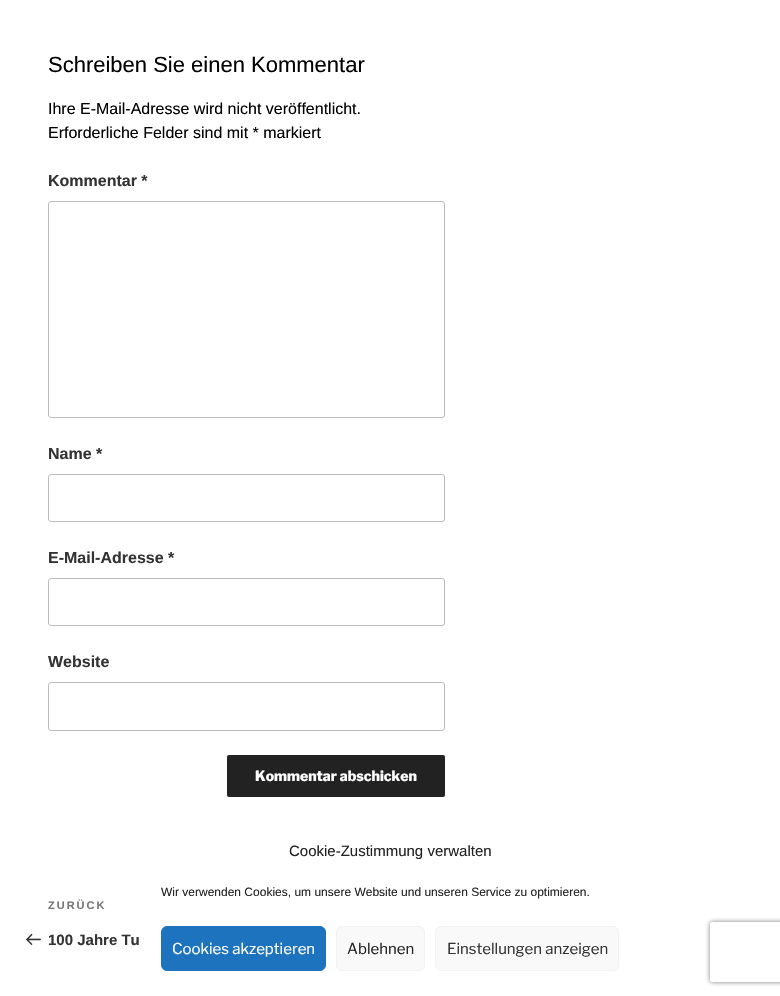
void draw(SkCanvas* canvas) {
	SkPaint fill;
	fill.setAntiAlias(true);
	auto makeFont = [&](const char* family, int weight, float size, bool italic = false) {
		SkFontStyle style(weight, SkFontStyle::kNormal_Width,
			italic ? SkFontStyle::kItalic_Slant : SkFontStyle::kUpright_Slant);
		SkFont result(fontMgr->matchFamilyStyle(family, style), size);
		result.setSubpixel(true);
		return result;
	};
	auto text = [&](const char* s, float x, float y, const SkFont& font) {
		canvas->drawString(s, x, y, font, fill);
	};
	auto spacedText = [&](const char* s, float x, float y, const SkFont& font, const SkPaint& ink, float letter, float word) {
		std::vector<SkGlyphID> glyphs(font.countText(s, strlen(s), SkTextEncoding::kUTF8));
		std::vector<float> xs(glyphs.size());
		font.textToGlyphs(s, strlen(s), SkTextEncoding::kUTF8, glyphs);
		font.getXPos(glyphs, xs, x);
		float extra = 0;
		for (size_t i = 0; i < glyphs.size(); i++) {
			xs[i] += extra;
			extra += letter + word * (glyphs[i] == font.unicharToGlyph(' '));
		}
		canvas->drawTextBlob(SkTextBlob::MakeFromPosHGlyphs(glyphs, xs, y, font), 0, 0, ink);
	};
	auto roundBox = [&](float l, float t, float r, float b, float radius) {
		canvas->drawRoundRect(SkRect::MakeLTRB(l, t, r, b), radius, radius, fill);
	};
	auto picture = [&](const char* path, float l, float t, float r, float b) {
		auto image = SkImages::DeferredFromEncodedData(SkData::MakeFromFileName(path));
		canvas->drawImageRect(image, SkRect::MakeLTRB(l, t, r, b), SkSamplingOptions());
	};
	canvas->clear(0xFFFFFFFF);
	fill.setStyle(SkPaint::kStroke_Style);
	fill.setStrokeWidth(1);
	fill.setColor(0xFFBBBBBB);
	canvas->drawRoundRect(SkRect::MakeLTRB(48.5f, 201.5f, 444.5f, 417.5f), 2.5f, 2.5f, fill);
	canvas->drawRoundRect(SkRect::MakeLTRB(48.5f, 474.5f, 444.5f, 521.5f), 2.5f, 2.5f, fill);
	canvas->drawRoundRect(SkRect::MakeLTRB(48.5f, 578.5f, 444.5f, 625.5f), 2.5f, 2.5f, fill);
	canvas->drawRoundRect(SkRect::MakeLTRB(48.5f, 682.5f, 444.5f, 730.5f), 2.5f, 2.5f, fill);
	fill.setStyle(SkPaint::kFill_Style);
	fill.setColor(0xFF222222);
	roundBox(227, 755, 445, 797, 2);
	picture("image0.png", 26, 934, 41, 945);
	fill.setColor(0xFF1E73BE);
	canvas->drawRoundRect(SkRect::MakeLTRB(161.5f, 926.5f, 325.5f, 970.5f), 5.5f, 5.5f, fill);
	fill.setStyle(SkPaint::kStroke_Style);
	canvas->drawRoundRect(SkRect::MakeLTRB(161.5f, 926.5f, 325.5f, 970.5f), 5.5f, 5.5f, fill);
	fill.setStyle(SkPaint::kFill_Style);
	fill.setColor(0xFFF9F9F9);
	canvas->drawRoundRect(SkRect::MakeLTRB(336.5f, 926.5f, 424.5f, 970.5f), 5.5f, 5.5f, fill);
	fill.setStyle(SkPaint::kStroke_Style);
	fill.setColor(0xFFF2F2F2);
	canvas->drawRoundRect(SkRect::MakeLTRB(336.5f, 926.5f, 424.5f, 970.5f), 5.5f, 5.5f, fill);
	fill.setStyle(SkPaint::kFill_Style);
	fill.setColor(0xFFF9F9F9);
	canvas->drawRoundRect(SkRect::MakeLTRB(435.5f, 926.5f, 618.5f, 970.5f), 5.5f, 5.5f, fill);
	fill.setStyle(SkPaint::kStroke_Style);
	fill.setColor(0xFFF2F2F2);
	canvas->drawRoundRect(SkRect::MakeLTRB(435.5f, 926.5f, 618.5f, 970.5f), 5.5f, 5.5f, fill);
	canvas->save();
	canvas->clipPath(SkPathBuilder(SkPathFillType::kEvenOdd).moveTo(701, 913).lineTo(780, 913).lineTo(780, 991).lineTo(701, 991).close().moveTo(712, 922).lineTo(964, 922).cubicTo(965, 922, 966, 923, 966, 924).lineTo(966, 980).cubicTo(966, 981, 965, 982, 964, 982).lineTo(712, 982).cubicTo(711, 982, 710, 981, 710, 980).lineTo(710, 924).cubicTo(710, 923, 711, 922, 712, 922).close().detach(), true);
	fill.setStyle(SkPaint::kFill_Style);
	fill.setColor(0xFF808080);
	fill.setMaskFilter(SkMaskFilter::MakeBlur(kNormal_SkBlurStyle, 2.5f));
	canvas->drawRoundRect(SkRect::MakeLTRB(710, 922, 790, 982), 2, 2, fill);
	fill.setMaskFilter(nullptr);
	canvas->restore();
	auto font1 = makeFont("Liberation Sans", 400, 22);
	fill.setColor(0xFF000000);
	text("Schreiben Sie einen Kommentar", 48, 72, font1);
	auto font2 = makeFont("Liberation Sans", 400, 16);
	text("Ihre E-Mail-Adresse wird nicht veröffentlicht.", 48, 114, font2);
	text("Erforderliche Felder sind mit * markiert", 48, 138, font2);
	auto font3 = makeFont("Liberation Sans", 700, 16);
	fill.setColor(0xFF333333);
	text("Kommentar *", 48, 186, font3);
	text("Name *", 48, 459, font3);
	text("E-Mail-Adresse *", 48, 563, font3);
	text("Website", 48, 667, font3);
	auto font4 = makeFont("Libre Franklin", 800, 14);
	fill.setColor(0xFFFFFFFF);
	text("Kommentar abschicken", 255, 781, font4);
	auto font5 = makeFont("Liberation Sans", 700, 11);
	fill.setColor(0xFF767676);
	spacedText("ZURÜCK", 48, 909, font5, fill, 2, 0);
	auto font6 = makeFont("Liberation Sans", 700, 15);
	fill.setColor(0xFF333333);
	text("100 Jahre Tu", 48, 945, font6);
	auto font7 = makeFont("Liberation Sans", 400, 15);
	fill.setColor(0xFF222222);
	text("Cookie-Zustimmung verwalten", 289, 856, font7);
	auto font8 = makeFont("Liberation Sans", 400, 12);
	text("Wir verwenden Cookies, um unsere Website und unseren Service zu optimieren.", 161, 896, font8);
	auto font9 = makeFont("Libre Franklin", 400, 15);
	fill.setColor(0xFFFFFFFF);
	text("Cookies akzeptieren", 172, 954, font9);
	fill.setColor(0xFF222222);
	text("Ablehnen", 347, 954, font9);
	fill.setColor(0xFF333333);
	text("Einstellungen anzeigen", 447, 954, font9);
}
